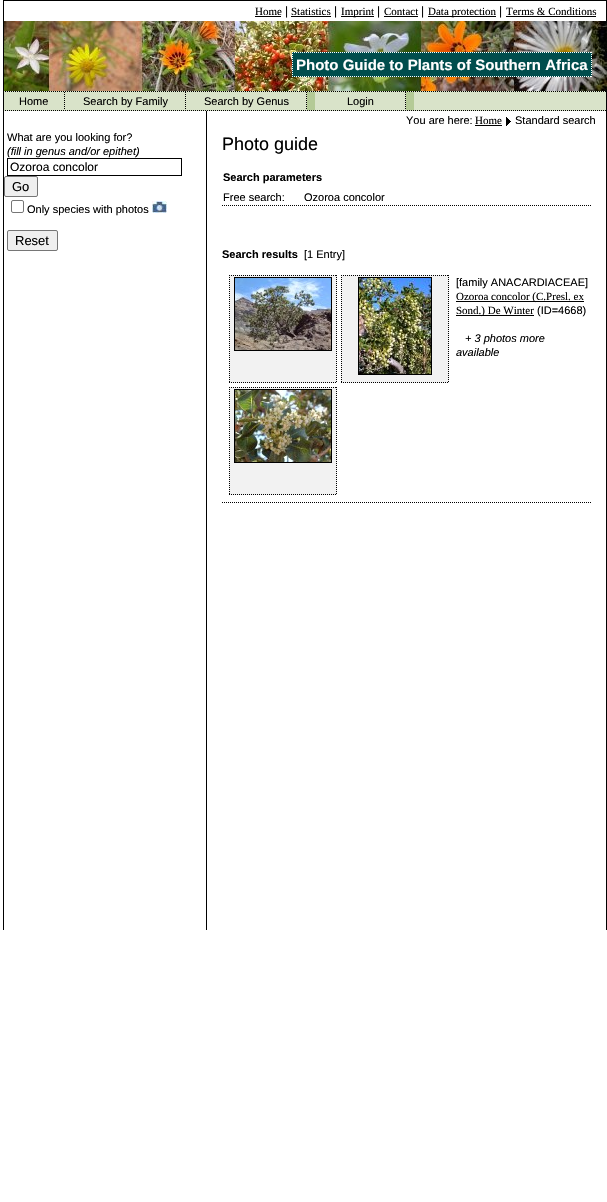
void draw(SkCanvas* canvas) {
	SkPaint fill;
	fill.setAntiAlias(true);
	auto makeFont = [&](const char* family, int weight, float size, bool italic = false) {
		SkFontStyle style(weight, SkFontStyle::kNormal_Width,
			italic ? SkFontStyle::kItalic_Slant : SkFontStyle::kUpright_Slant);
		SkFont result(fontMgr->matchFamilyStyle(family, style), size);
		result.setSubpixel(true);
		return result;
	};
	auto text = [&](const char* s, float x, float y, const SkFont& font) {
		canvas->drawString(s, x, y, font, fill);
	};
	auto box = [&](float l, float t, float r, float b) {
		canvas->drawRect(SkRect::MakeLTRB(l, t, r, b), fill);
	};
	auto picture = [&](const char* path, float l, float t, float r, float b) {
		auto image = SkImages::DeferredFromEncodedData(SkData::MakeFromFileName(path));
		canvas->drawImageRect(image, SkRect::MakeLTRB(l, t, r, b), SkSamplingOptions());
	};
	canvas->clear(0xFFFFFFFF);
	fill.setColor(0xFF000000);
	box(3, 0, 607, 1);
	box(606, 0, 607, 21);
	box(3, 0, 4, 21);
	box(255, 16, 281, 17);
	box(291, 16, 331, 17);
	box(341, 16, 374, 17);
	box(384, 16, 418, 17);
	box(428, 16, 496, 17);
	box(506, 16, 596, 17);
	picture("image0.png", 4, 21, 607, 91);
	fill.setColor(0xFF004D4D);
	box(292, 52, 592, 77);
	fill.setStyle(SkPaint::kStroke_Style);
	fill.setStrokeWidth(1);
	fill.setColor(0xFFFFFFFF);
	fill.setPathEffect(SkDashPathEffect::Make({{1, 1}}, 0));
	canvas->drawPath(SkPathBuilder().moveTo(292, 52.5f).lineTo(592, 52.5f).detach(), fill);
	fill.setPathEffect(nullptr);
	fill.setPathEffect(SkDashPathEffect::Make({{1, 1}}, 0));
	canvas->drawPath(SkPathBuilder().moveTo(591.5f, 52).lineTo(591.5f, 77).detach(), fill);
	fill.setPathEffect(nullptr);
	fill.setPathEffect(SkDashPathEffect::Make({{1, 1}}, 0));
	canvas->drawPath(SkPathBuilder().moveTo(292, 76.5f).lineTo(592, 76.5f).detach(), fill);
	fill.setPathEffect(nullptr);
	fill.setPathEffect(SkDashPathEffect::Make({{1, 1}}, 0));
	canvas->drawPath(SkPathBuilder().moveTo(292.5f, 52).lineTo(292.5f, 77).detach(), fill);
	fill.setPathEffect(nullptr);
	fill.setStyle(SkPaint::kFill_Style);
	fill.setColor(0xFFD9E3C9);
	box(4, 91, 606, 111);
	fill.setStyle(SkPaint::kStroke_Style);
	fill.setColor(0xFF000000);
	fill.setPathEffect(SkDashPathEffect::Make({{1, 1}}, 0));
	canvas->drawPath(SkPathBuilder().moveTo(3, 91.5f).lineTo(607, 91.5f).detach(), fill);
	fill.setPathEffect(nullptr);
	fill.setStyle(SkPaint::kFill_Style);
	box(606, 91, 607, 930);
	fill.setStyle(SkPaint::kStroke_Style);
	fill.setPathEffect(SkDashPathEffect::Make({{1, 1}}, 0));
	canvas->drawPath(SkPathBuilder().moveTo(3, 110.5f).lineTo(607, 110.5f).detach(), fill);
	fill.setPathEffect(nullptr);
	fill.setStyle(SkPaint::kFill_Style);
	box(3, 21, 4, 930);
	fill.setStyle(SkPaint::kStroke_Style);
	fill.setPathEffect(SkDashPathEffect::Make({{1, 1}}, 0));
	canvas->drawPath(SkPathBuilder().moveTo(64.5f, 92).lineTo(64.5f, 110).detach(), fill);
	fill.setPathEffect(nullptr);
	fill.setPathEffect(SkDashPathEffect::Make({{1, 1}}, 0));
	canvas->drawPath(SkPathBuilder().moveTo(185.5f, 92).lineTo(185.5f, 110).detach(), fill);
	fill.setPathEffect(nullptr);
	fill.setPathEffect(SkDashPathEffect::Make({{1, 1}}, 0));
	canvas->drawPath(SkPathBuilder().moveTo(306.5f, 92).lineTo(306.5f, 110).detach(), fill);
	fill.setPathEffect(nullptr);
	fill.setStyle(SkPaint::kFill_Style);
	fill.setColor(0xFFB4CA96);
	box(307, 92, 315, 110);
	fill.setStyle(SkPaint::kStroke_Style);
	fill.setColor(0xFF000000);
	fill.setPathEffect(SkDashPathEffect::Make({{1, 1}}, 0));
	canvas->drawPath(SkPathBuilder().moveTo(405.5f, 92).lineTo(405.5f, 110).detach(), fill);
	fill.setPathEffect(nullptr);
	fill.setStyle(SkPaint::kFill_Style);
	fill.setColor(0xFFB4CA96);
	box(406, 92, 414, 110);
	fill.setColor(0xFF000000);
	box(206, 111, 207, 930);
	box(475, 125, 502, 126);
	picture("image1.png", 506, 117, 511, 126);
	fill.setStyle(SkPaint::kStroke_Style);
	canvas->drawRect(SkRect::MakeLTRB(7.5f, 158.5f, 181.5f, 175.5f), fill);
	fill.setStyle(SkPaint::kFill_Style);
	fill.setColor(0xFFEFEFEF);
	canvas->drawRoundRect(SkRect::MakeLTRB(4.5f, 176.5f, 37.5f, 196.5f), 1.5f, 1.5f, fill);
	fill.setStyle(SkPaint::kStroke_Style);
	fill.setColor(0xFF767676);
	canvas->drawRoundRect(SkRect::MakeLTRB(4.5f, 176.5f, 37.5f, 196.5f), 1.5f, 1.5f, fill);
	canvas->drawRoundRect(SkRect::MakeLTRB(11.5f, 200.5f, 23.5f, 212.5f), 1.5f, 1.5f, fill);
	picture("image2.png", 152, 201, 167, 213);
	fill.setStyle(SkPaint::kFill_Style);
	fill.setColor(0xFFEFEFEF);
	canvas->drawRoundRect(SkRect::MakeLTRB(7.5f, 230.5f, 57.5f, 250.5f), 1.5f, 1.5f, fill);
	fill.setStyle(SkPaint::kStroke_Style);
	fill.setColor(0xFF767676);
	canvas->drawRoundRect(SkRect::MakeLTRB(7.5f, 230.5f, 57.5f, 250.5f), 1.5f, 1.5f, fill);
	fill.setColor(0xFF000000);
	fill.setPathEffect(SkDashPathEffect::Make({{1, 1}}, 0));
	canvas->drawPath(SkPathBuilder().moveTo(222, 205.5f).lineTo(591, 205.5f).detach(), fill);
	fill.setPathEffect(nullptr);
	fill.setPathEffect(SkDashPathEffect::Make({{1, 1}}, 0));
	canvas->drawPath(SkPathBuilder().moveTo(222, 502.5f).lineTo(591, 502.5f).detach(), fill);
	fill.setPathEffect(nullptr);
	fill.setStyle(SkPaint::kFill_Style);
	fill.setColor(0xFFF2F2F2);
	box(229, 275, 337, 383);
	fill.setStyle(SkPaint::kStroke_Style);
	fill.setColor(0xFF000000);
	fill.setPathEffect(SkDashPathEffect::Make({{1, 1}}, 0));
	canvas->drawPath(SkPathBuilder().moveTo(229, 275.5f).lineTo(337, 275.5f).detach(), fill);
	fill.setPathEffect(nullptr);
	fill.setPathEffect(SkDashPathEffect::Make({{1, 1}}, 0));
	canvas->drawPath(SkPathBuilder().moveTo(336.5f, 275).lineTo(336.5f, 383).detach(), fill);
	fill.setPathEffect(nullptr);
	fill.setPathEffect(SkDashPathEffect::Make({{1, 1}}, 0));
	canvas->drawPath(SkPathBuilder().moveTo(229, 382.5f).lineTo(337, 382.5f).detach(), fill);
	fill.setPathEffect(nullptr);
	fill.setPathEffect(SkDashPathEffect::Make({{1, 1}}, 0));
	canvas->drawPath(SkPathBuilder().moveTo(229.5f, 275).lineTo(229.5f, 383).detach(), fill);
	fill.setPathEffect(nullptr);
	canvas->drawRect(SkRect::MakeLTRB(234.5f, 277.5f, 331.5f, 350.5f), fill);
	picture("image3.png", 235, 278, 331, 350);
	fill.setStyle(SkPaint::kFill_Style);
	fill.setColor(0xFFF2F2F2);
	box(341, 275, 449, 383);
	fill.setStyle(SkPaint::kStroke_Style);
	fill.setColor(0xFF000000);
	fill.setPathEffect(SkDashPathEffect::Make({{1, 1}}, 0));
	canvas->drawPath(SkPathBuilder().moveTo(341, 275.5f).lineTo(449, 275.5f).detach(), fill);
	fill.setPathEffect(nullptr);
	fill.setPathEffect(SkDashPathEffect::Make({{1, 1}}, 0));
	canvas->drawPath(SkPathBuilder().moveTo(448.5f, 275).lineTo(448.5f, 383).detach(), fill);
	fill.setPathEffect(nullptr);
	fill.setPathEffect(SkDashPathEffect::Make({{1, 1}}, 0));
	canvas->drawPath(SkPathBuilder().moveTo(341, 382.5f).lineTo(449, 382.5f).detach(), fill);
	fill.setPathEffect(nullptr);
	fill.setPathEffect(SkDashPathEffect::Make({{1, 1}}, 0));
	canvas->drawPath(SkPathBuilder().moveTo(341.5f, 275).lineTo(341.5f, 383).detach(), fill);
	fill.setPathEffect(nullptr);
	canvas->drawRect(SkRect::MakeLTRB(358.5f, 277.5f, 431.5f, 374.5f), fill);
	picture("image4.png", 359, 278, 431, 374);
	fill.setStyle(SkPaint::kFill_Style);
	fill.setColor(0xFFF2F2F2);
	box(229, 387, 337, 495);
	fill.setStyle(SkPaint::kStroke_Style);
	fill.setColor(0xFF000000);
	fill.setPathEffect(SkDashPathEffect::Make({{1, 1}}, 0));
	canvas->drawPath(SkPathBuilder().moveTo(229, 387.5f).lineTo(337, 387.5f).detach(), fill);
	fill.setPathEffect(nullptr);
	fill.setPathEffect(SkDashPathEffect::Make({{1, 1}}, 0));
	canvas->drawPath(SkPathBuilder().moveTo(336.5f, 387).lineTo(336.5f, 495).detach(), fill);
	fill.setPathEffect(nullptr);
	fill.setPathEffect(SkDashPathEffect::Make({{1, 1}}, 0));
	canvas->drawPath(SkPathBuilder().moveTo(229, 494.5f).lineTo(337, 494.5f).detach(), fill);
	fill.setPathEffect(nullptr);
	fill.setPathEffect(SkDashPathEffect::Make({{1, 1}}, 0));
	canvas->drawPath(SkPathBuilder().moveTo(229.5f, 387).lineTo(229.5f, 495).detach(), fill);
	fill.setPathEffect(nullptr);
	canvas->drawRect(SkRect::MakeLTRB(234.5f, 389.5f, 331.5f, 462.5f), fill);
	picture("image5.png", 235, 390, 331, 462);
	fill.setStyle(SkPaint::kFill_Style);
	box(456, 301, 584, 302);
	box(456, 315, 534, 316);
	auto font1 = makeFont("Liberation Serif", 400, 11);
	text("Home", 255, 15, font1);
	auto font2 = makeFont("Liberation Sans", 400, 12);
	text("|", 285, 15, font2);
	text("Statistics", 291, 15, font1);
	text("|", 334, 15, font2);
	text("Imprint", 341, 15, font1);
	text("|", 377, 15, font2);
	text("Contact", 384, 15, font1);
	text("|", 421, 15, font2);
	text("Data protection", 428, 15, font1);
	text("|", 499, 15, font2);
	text("Terms & Conditions", 506, 15, font1);
	auto font3 = makeFont("Liberation Sans", 700, 15);
	fill.setColor(0xFFFFFFFF);
	text("Photo Guide to Plants of Southern Africa", 296, 70, font3);
	auto font4 = makeFont("Liberation Sans", 400, 11);
	fill.setColor(0xFF000000);
	text("Home", 19, 105, font4);
	text("Search by Family", 83, 105, font4);
	text("Search by Genus", 204, 105, font4);
	text("Login", 347, 105, font4);
	text("You are here:", 406, 124, font4);
	text("Home", 475, 124, font1);
	text("Standard search", 515, 124, font4);
	text("What are you looking for?", 7, 141, font4);
	auto font5 = makeFont("Liberation Sans", 400, 11, true);
	text("(fill in genus and/or epithet)", 7, 155, font5);
	text("Ozoroa concolor", 10, 171, font2);
	auto font6 = makeFont("Liberation Sans", 400, 13);
	text("Go", 12, 191, font6);
	text("Only species with photos", 27, 213, font4);
	text("Reset", 15, 245, font6);
	auto font7 = makeFont("Liberation Sans", 400, 18);
	text("Photo guide", 222, 150, font7);
	auto font8 = makeFont("Liberation Sans", 700, 11);
	text("Search parameters", 223, 181, font8);
	text("Free search:", 223, 201, font4);
	text("Ozoroa concolor", 304, 201, font4);
	text("Search results", 222, 258, font8);
	text("[1 Entry]", 304, 258, font4);
	text("[family ANACARDIACEAE]", 456, 286, font4);
	text("Ozoroa concolor (C.Presl. ex", 456, 300, font1);
	text("Sond.) De Winter", 456, 314, font1);
	text("(ID=4668)", 537, 314, font4);
	text("+ 3 photos more", 465, 342, font5);
	text("available", 456, 356, font5);
}
